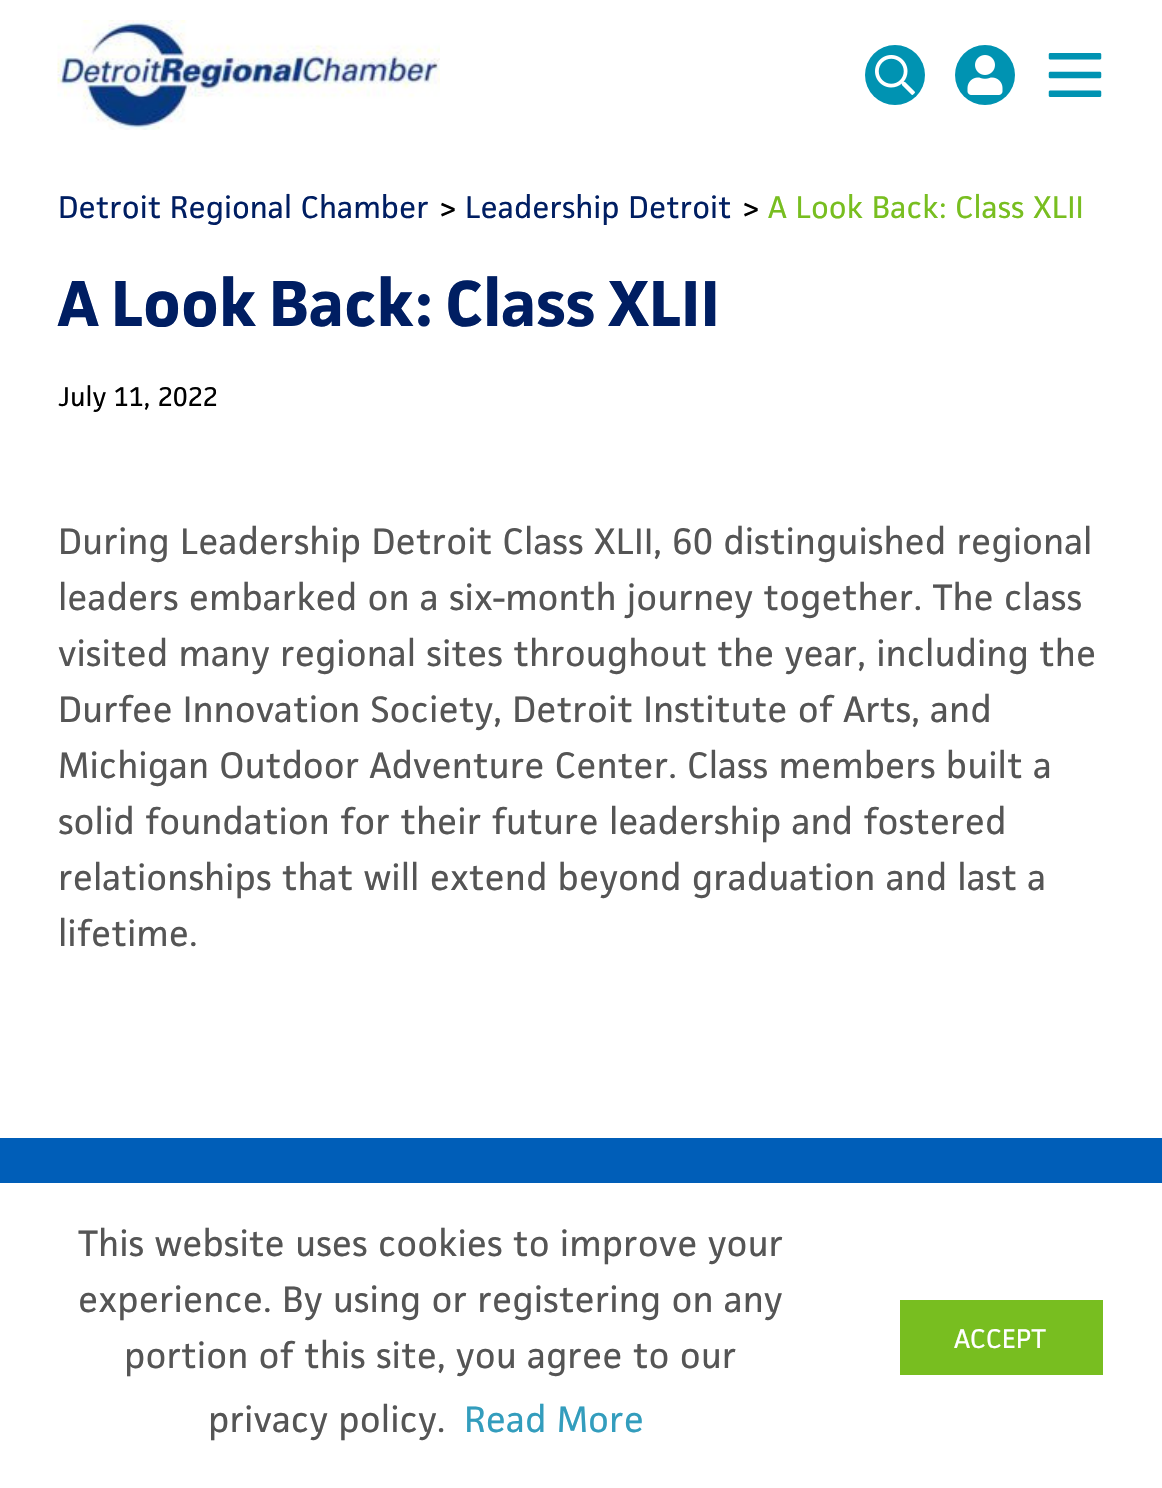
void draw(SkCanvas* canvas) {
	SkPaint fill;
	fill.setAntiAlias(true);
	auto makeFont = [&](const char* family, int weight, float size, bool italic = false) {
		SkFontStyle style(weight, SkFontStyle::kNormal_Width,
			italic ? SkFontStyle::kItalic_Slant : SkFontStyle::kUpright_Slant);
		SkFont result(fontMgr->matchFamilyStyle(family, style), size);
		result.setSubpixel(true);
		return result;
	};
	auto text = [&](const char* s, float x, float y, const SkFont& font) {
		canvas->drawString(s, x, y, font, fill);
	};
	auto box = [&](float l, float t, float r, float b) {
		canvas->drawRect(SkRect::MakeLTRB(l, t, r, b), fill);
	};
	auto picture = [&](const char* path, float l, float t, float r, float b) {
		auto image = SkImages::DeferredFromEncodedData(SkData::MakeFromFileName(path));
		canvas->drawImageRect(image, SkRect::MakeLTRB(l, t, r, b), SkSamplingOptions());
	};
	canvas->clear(0xFFFFFFFF);
	picture("image0.png", 57, 20, 440, 130);
	fill.setColor(0xFF0093B2);
	canvas->drawCircle(895, 75, 30, fill);
	picture("image1.png", 875, 55, 915, 95);
	canvas->drawCircle(985, 75, 30, fill);
	picture("image2.png", 967, 55, 1003, 95);
	picture("image3.png", 1048, 53, 1102, 97);
	fill.setColor(0xFF005EB8);
	box(0, 1138, 1162, 1183);
	fill.setColor(0xFF78BE20);
	box(900, 1300, 1103, 1375);
	auto font1 = makeFont("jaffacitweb", 400, 29);
	fill.setColor(0xFF001E62);
	text("Detroit Regional Chamber", 58, 218, font1);
	fill.setColor(0xFF000000);
	text(">", 438, 218, font1);
	fill.setColor(0xFF001E62);
	text("Leadership Detroit", 465, 218, font1);
	fill.setColor(0xFF000000);
	text(">", 741, 218, font1);
	fill.setColor(0xFF78BE20);
	text("A Look Back: Class XLII", 768, 218, font1);
	auto font2 = makeFont("jaffacitweb", 700, 60);
	fill.setColor(0xFF001E62);
	text("A Look Back: Class XLII", 58, 326, font2);
	auto font3 = makeFont("jaffacitweb", 400, 25);
	fill.setColor(0xFF000000);
	text("July 11, 2022", 58, 406, font3);
	auto font4 = makeFont("jaffacitweb", 400, 34);
	fill.setColor(0xFF555555);
	text("During Leadership Detroit Class XLII, 60 distinguished regional", 58, 554, font4);
	text("leaders embarked on a six-month journey together. The class", 58, 610, font4);
	text("visited many regional sites throughout the year, including the", 58, 666, font4);
	text("Durfee Innovation Society, Detroit Institute of Arts, and", 58, 722, font4);
	text("Michigan Outdoor Adventure Center. Class members built a", 58, 778, font4);
	text("solid foundation for their future leadership and fostered", 58, 834, font4);
	text("relationships that will extend beyond graduation and last a", 58, 890, font4);
	text("lifetime.", 58, 946, font4);
	text("This website uses cookies to improve your", 78, 1256, font4);
	text("experience. By using or registering on any", 78, 1312, font4);
	text("portion of this site, you agree to our", 124, 1368, font4);
	text("privacy policy.", 208, 1432, font4);
	fill.setColor(0xFF339DBD);
	text("Read More", 464, 1432, font4);
	fill.setColor(0xFFFFFFFF);
	text("ACCEPT", 954, 1348, font3);
}
